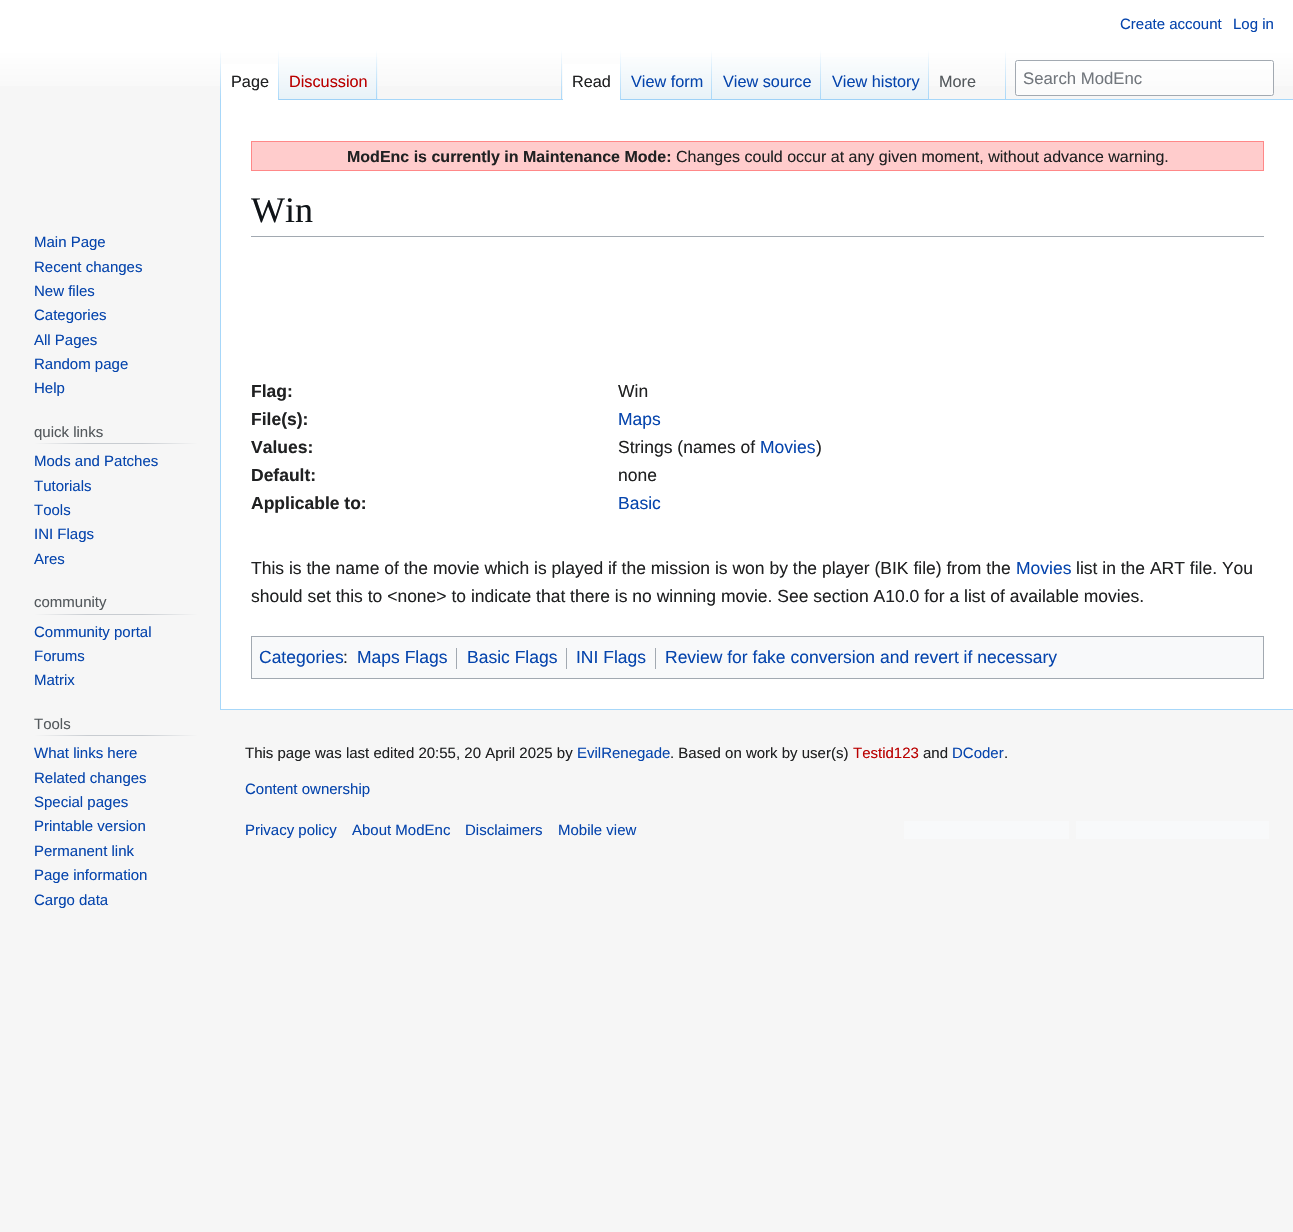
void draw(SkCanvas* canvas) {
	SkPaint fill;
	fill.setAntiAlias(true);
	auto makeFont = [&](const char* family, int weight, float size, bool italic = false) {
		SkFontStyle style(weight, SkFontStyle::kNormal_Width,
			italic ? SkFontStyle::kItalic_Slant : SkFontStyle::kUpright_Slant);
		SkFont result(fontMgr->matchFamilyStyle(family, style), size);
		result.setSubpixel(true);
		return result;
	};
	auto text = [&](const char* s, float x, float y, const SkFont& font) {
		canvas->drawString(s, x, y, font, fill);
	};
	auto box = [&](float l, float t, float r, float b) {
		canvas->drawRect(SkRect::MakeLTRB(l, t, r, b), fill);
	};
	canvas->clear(0xFFF6F6F6);
	{
		const SkColor colors[] = {0xFFFFFFFF, 0xFFF6F6F6};
		const float stops[] = {0.5f, 1};
		const SkPoint ends[] = {{647, 0}, {647, 100}};
		fill.setShader(SkGradientShader::MakeLinear(ends, colors, stops, 2, SkTileMode::kClamp));
		fill.setAlpha(255);
	}
	box(0, 0, 1293, 86);
	fill.setShader(nullptr);
	fill.setColor(0xFFA7D7F9);
	box(220, 709, 1293, 710);
	box(220, 99, 221, 710);
	{
		const SkColor colors[] = {0x00A7D7F9, 0xFFA7D7F9};
		const float stops[] = {0, 1};
		const SkPoint ends[] = {{221, 50}, {221, 100}};
		fill.setShader(SkGradientShader::MakeLinear(ends, colors, stops, 2, SkTileMode::kClamp));
		fill.setAlpha(255);
	}
	box(220, 50, 221, 100);
	fill.setShader(nullptr);
	fill.setColor(0xFFFFFFFF);
	box(221, 64, 278, 100);
	{
		const SkColor colors[] = {0xFFFFFFFF, 0xFFA7D7F9};
		const float stops[] = {0, 1};
		const SkPoint ends[] = {{278, 50}, {278, 100}};
		fill.setShader(SkGradientShader::MakeLinear(ends, colors, stops, 2, SkTileMode::kClamp));
		fill.setAlpha(255);
	}
	box(278, 50, 279, 100);
	{
		const SkColor colors[] = {0xFF77C1F6, 0xFFE8F2F8, 0xFFFFFFFF};
		const float stops[] = {0, 0.03f, 1};
		const SkPoint ends[] = {{328, 100}, {328, 50}};
		fill.setShader(SkGradientShader::MakeLinear(ends, colors, stops, 3, SkTileMode::kClamp));
		fill.setAlpha(255);
	}
	box(279, 57, 378, 100);
	{
		const SkColor colors[] = {0x00A7D7F9, 0xFFA7D7F9};
		const float stops[] = {0, 1};
		const SkPoint ends[] = {{377, 50}, {377, 100}};
		fill.setShader(SkGradientShader::MakeLinear(ends, colors, stops, 2, SkTileMode::kClamp));
		fill.setAlpha(255);
	}
	box(376, 50, 377, 100);
	fill.setShader(nullptr);
	fill.setColor(0xFFA7D7F9);
	box(378, 99, 1293, 100);
	{
		const SkColor colors[] = {0x00A7D7F9, 0xFFA7D7F9};
		const float stops[] = {0, 1};
		const SkPoint ends[] = {{562, 50}, {562, 100}};
		fill.setShader(SkGradientShader::MakeLinear(ends, colors, stops, 2, SkTileMode::kClamp));
		fill.setAlpha(255);
	}
	box(561, 50, 562, 100);
	fill.setShader(nullptr);
	fill.setColor(0xFFFFFFFF);
	box(563, 64, 620, 100);
	{
		const SkColor colors[] = {0xFFFFFFFF, 0xFFA7D7F9};
		const float stops[] = {0, 1};
		const SkPoint ends[] = {{621, 50}, {621, 100}};
		fill.setShader(SkGradientShader::MakeLinear(ends, colors, stops, 2, SkTileMode::kClamp));
		fill.setAlpha(255);
	}
	box(620, 50, 621, 100);
	{
		const SkColor colors[] = {0xFF77C1F6, 0xFFE8F2F8, 0xFFFFFFFF};
		const float stops[] = {0, 0.03f, 1};
		const SkPoint ends[] = {{667, 100}, {667, 50}};
		fill.setShader(SkGradientShader::MakeLinear(ends, colors, stops, 3, SkTileMode::kClamp));
		fill.setAlpha(255);
	}
	box(621, 57, 713, 100);
	{
		const SkColor colors[] = {0x00A7D7F9, 0xFFA7D7F9};
		const float stops[] = {0, 1};
		const SkPoint ends[] = {{712, 50}, {712, 100}};
		fill.setShader(SkGradientShader::MakeLinear(ends, colors, stops, 2, SkTileMode::kClamp));
		fill.setAlpha(255);
	}
	box(711, 50, 712, 100);
	{
		const SkColor colors[] = {0xFF77C1F6, 0xFFE8F2F8, 0xFFFFFFFF};
		const float stops[] = {0, 0.03f, 1};
		const SkPoint ends[] = {{767, 100}, {767, 50}};
		fill.setShader(SkGradientShader::MakeLinear(ends, colors, stops, 3, SkTileMode::kClamp));
		fill.setAlpha(255);
	}
	box(713, 57, 821, 100);
	{
		const SkColor colors[] = {0x00A7D7F9, 0xFFA7D7F9};
		const float stops[] = {0, 1};
		const SkPoint ends[] = {{821, 50}, {821, 100}};
		fill.setShader(SkGradientShader::MakeLinear(ends, colors, stops, 2, SkTileMode::kClamp));
		fill.setAlpha(255);
	}
	box(820, 50, 821, 100);
	{
		const SkColor colors[] = {0xFF77C1F6, 0xFFE8F2F8, 0xFFFFFFFF};
		const float stops[] = {0, 0.03f, 1};
		const SkPoint ends[] = {{875, 100}, {875, 50}};
		fill.setShader(SkGradientShader::MakeLinear(ends, colors, stops, 3, SkTileMode::kClamp));
		fill.setAlpha(255);
	}
	box(821, 57, 929, 100);
	{
		const SkColor colors[] = {0x00A7D7F9, 0xFFA7D7F9};
		const float stops[] = {0, 1};
		const SkPoint ends[] = {{928, 50}, {928, 100}};
		fill.setShader(SkGradientShader::MakeLinear(ends, colors, stops, 2, SkTileMode::kClamp));
		fill.setAlpha(255);
	}
	box(928, 50, 929, 100);
	{
		const SkColor colors[] = {0x00A7D7F9, 0xFFA7D7F9};
		const float stops[] = {0, 1};
		const SkPoint ends[] = {{1006, 50}, {1006, 100}};
		fill.setShader(SkGradientShader::MakeLinear(ends, colors, stops, 2, SkTileMode::kClamp));
		fill.setAlpha(255);
	}
	box(1005, 50, 1006, 100);
	fill.setShader(nullptr);
	fill.setColor(0x80FFFFFF);
	canvas->drawRoundRect(SkRect::MakeLTRB(1015.5f, 60.5f, 1273.5f, 95.5f), 2, 2, fill);
	fill.setStyle(SkPaint::kStroke_Style);
	fill.setStrokeWidth(1);
	fill.setColor(0xFFA2A9B1);
	canvas->drawRoundRect(SkRect::MakeLTRB(1015.5f, 60.5f, 1273.5f, 95.5f), 2, 2, fill);
	fill.setStyle(SkPaint::kFill_Style);
	{
		const SkColor colors[] = {0xFFF6F6F6, 0xFFC8CCD1, 0xFFC8CCD1, 0xFFF6F6F6};
		const float stops[] = {0, 0.33f, 0.66f, 1};
		const SkPoint ends[] = {{34, 443}, {198, 443}};
		fill.setShader(SkGradientShader::MakeLinear(ends, colors, stops, 4, SkTileMode::kClamp));
		fill.setAlpha(255);
	}
	box(34, 443, 198, 444);
	{
		const SkColor colors[] = {0xFFF6F6F6, 0xFFC8CCD1, 0xFFC8CCD1, 0xFFF6F6F6};
		const float stops[] = {0, 0.33f, 0.66f, 1};
		const SkPoint ends[] = {{34, 614}, {198, 614}};
		fill.setShader(SkGradientShader::MakeLinear(ends, colors, stops, 4, SkTileMode::kClamp));
		fill.setAlpha(255);
	}
	box(34, 614, 198, 615);
	{
		const SkColor colors[] = {0xFFF6F6F6, 0xFFC8CCD1, 0xFFC8CCD1, 0xFFF6F6F6};
		const float stops[] = {0, 0.33f, 0.66f, 1};
		const SkPoint ends[] = {{34, 736}, {198, 736}};
		fill.setShader(SkGradientShader::MakeLinear(ends, colors, stops, 4, SkTileMode::kClamp));
		fill.setAlpha(255);
	}
	box(34, 735, 198, 736);
	fill.setShader(nullptr);
	fill.setColor(0xFFFFFFFF);
	box(221, 100, 1293, 709);
	fill.setColor(0xFFFFCCCC);
	canvas->drawRect(SkRect::MakeLTRB(251.5f, 141.5f, 1263.5f, 170.5f), fill);
	fill.setStyle(SkPaint::kStroke_Style);
	fill.setColor(0xFFFF8888);
	canvas->drawRect(SkRect::MakeLTRB(251.5f, 141.5f, 1263.5f, 170.5f), fill);
	fill.setStyle(SkPaint::kFill_Style);
	fill.setColor(0xFFA2A9B1);
	box(251, 236, 1264, 237);
	fill.setColor(0xFFF8F9FA);
	canvas->drawRect(SkRect::MakeLTRB(251.5f, 636.5f, 1263.5f, 678.5f), fill);
	fill.setStyle(SkPaint::kStroke_Style);
	fill.setColor(0xFFA2A9B1);
	canvas->drawRect(SkRect::MakeLTRB(251.5f, 636.5f, 1263.5f, 678.5f), fill);
	fill.setStyle(SkPaint::kFill_Style);
	box(456, 648, 457, 669);
	box(566, 648, 567, 669);
	box(655, 648, 656, 669);
	fill.setColor(0xFFF8F9FA);
	box(904, 821, 1069, 839);
	box(1076, 821, 1269, 839);
	auto font1 = makeFont("Liberation Sans", 400, 15);
	fill.setColor(0xFF0645AD);
	text("Create account", 1120, 29, font1);
	text("Log in", 1233, 29, font1);
	auto font2 = makeFont("Liberation Sans", 400, 16.25f);
	fill.setColor(0xFF202122);
	text("Page", 231, 87, font2);
	fill.setColor(0xFFBA0000);
	text("Discussion", 289, 87, font2);
	fill.setColor(0xFF202122);
	text("Read", 572, 87, font2);
	fill.setColor(0xFF0645AD);
	text("View form", 631, 87, font2);
	text("View source", 723, 87, font2);
	text("View history", 832, 87, font2);
	fill.setColor(0xFF54595D);
	text("More", 939, 87, font2);
	auto font3 = makeFont("Liberation Sans", 400, 16.75f);
	fill.setColor(0xFF72777D);
	text("Search ModEnc", 1023, 84, font3);
	fill.setColor(0xFF0645AD);
	text("Main Page", 34, 247, font1);
	text("Recent changes", 34, 272, font1);
	text("New files", 34, 296, font1);
	text("Categories", 34, 320, font1);
	text("All Pages", 34, 345, font1);
	text("Random page", 34, 369, font1);
	text("Help", 34, 393, font1);
	fill.setColor(0xFF54595D);
	text("quick links", 34, 437, font1);
	fill.setColor(0xFF0645AD);
	text("Mods and Patches", 34, 466, font1);
	text("Tutorials", 34, 491, font1);
	text("Tools", 34, 515, font1);
	text("INI Flags", 34, 539, font1);
	text("Ares", 34, 564, font1);
	fill.setColor(0xFF54595D);
	text("community", 34, 607, font1);
	fill.setColor(0xFF0645AD);
	text("Community portal", 34, 637, font1);
	text("Forums", 34, 661, font1);
	text("Matrix", 34, 685, font1);
	fill.setColor(0xFF54595D);
	text("Tools", 34, 729, font1);
	fill.setColor(0xFF0645AD);
	text("What links here", 34, 758, font1);
	text("Related changes", 34, 783, font1);
	text("Special pages", 34, 807, font1);
	text("Printable version", 34, 831, font1);
	text("Permanent link", 34, 856, font1);
	text("Page information", 34, 880, font1);
	text("Cargo data", 34, 905, font1);
	auto font4 = makeFont("Liberation Sans", 700, 16);
	fill.setColor(0xFF202122);
	text("ModEnc is currently in Maintenance Mode:", 347, 162, font4);
	auto font5 = makeFont("Liberation Sans", 400, 16);
	text("Changes could occur at any given moment, without advance warning.", 676, 162, font5);
	auto font6 = makeFont("Liberation Serif", 400, 36);
	fill.setColor(0xFF101418);
	text("Win", 251, 222, font6);
	auto font7 = makeFont("Liberation Sans", 700, 17.5f);
	fill.setColor(0xFF202122);
	text("Flag:", 251, 397, font7);
	auto font8 = makeFont("Liberation Sans", 400, 17.5f);
	text("Win", 618, 397, font8);
	text("File(s):", 251, 425, font7);
	fill.setColor(0xFF0645AD);
	text("Maps", 618, 425, font8);
	fill.setColor(0xFF202122);
	text("Values:", 251, 453, font7);
	text("Strings (names of", 618, 453, font8);
	fill.setColor(0xFF0645AD);
	text("Movies", 760, 453, font8);
	fill.setColor(0xFF202122);
	text(")", 816, 453, font8);
	text("Default:", 251, 481, font7);
	text("none", 618, 481, font8);
	text("Applicable to:", 251, 509, font7);
	fill.setColor(0xFF0645AD);
	text("Basic", 618, 509, font8);
	fill.setColor(0xFF202122);
	text("This is the name of the movie which is played if the mission is won by the player (BIK file) from the", 251, 574, font8);
	fill.setColor(0xFF0645AD);
	text("Movies", 1016, 574, font8);
	fill.setColor(0xFF202122);
	text("list in the ART file. You", 1076, 574, font8);
	text("should set this to <none> to indicate that there is no winning movie. See section A10.0 for a list of available movies.", 251, 602, font8);
	fill.setColor(0xFF0645AD);
	text("Categories", 259, 663, font8);
	fill.setColor(0xFF202122);
	text(":", 343, 663, font8);
	fill.setColor(0xFF0645AD);
	text("Maps Flags", 357, 663, font8);
	text("Basic Flags", 467, 663, font8);
	text("INI Flags", 576, 663, font8);
	text("Review for fake conversion and revert if necessary", 665, 663, font8);
	fill.setColor(0xFF202122);
	text("This page was last edited 20:55, 20 April 2025 by", 245, 758, font1);
	fill.setColor(0xFF0645AD);
	text("EvilRenegade", 577, 758, font1);
	fill.setColor(0xFF202122);
	text(". Based on work by user(s)", 670, 758, font1);
	fill.setColor(0xFFBA0000);
	text("Testid123", 853, 758, font1);
	fill.setColor(0xFF202122);
	text("and", 923, 758, font1);
	fill.setColor(0xFF0645AD);
	text("DCoder", 952, 758, font1);
	fill.setColor(0xFF202122);
	text(".", 1004, 758, font1);
	fill.setColor(0xFF0645AD);
	text("Content ownership", 245, 794, font1);
	text("Privacy policy", 245, 835, font1);
	text("About ModEnc", 352, 835, font1);
	text("Disclaimers", 465, 835, font1);
	text("Mobile view", 558, 835, font1);
}
